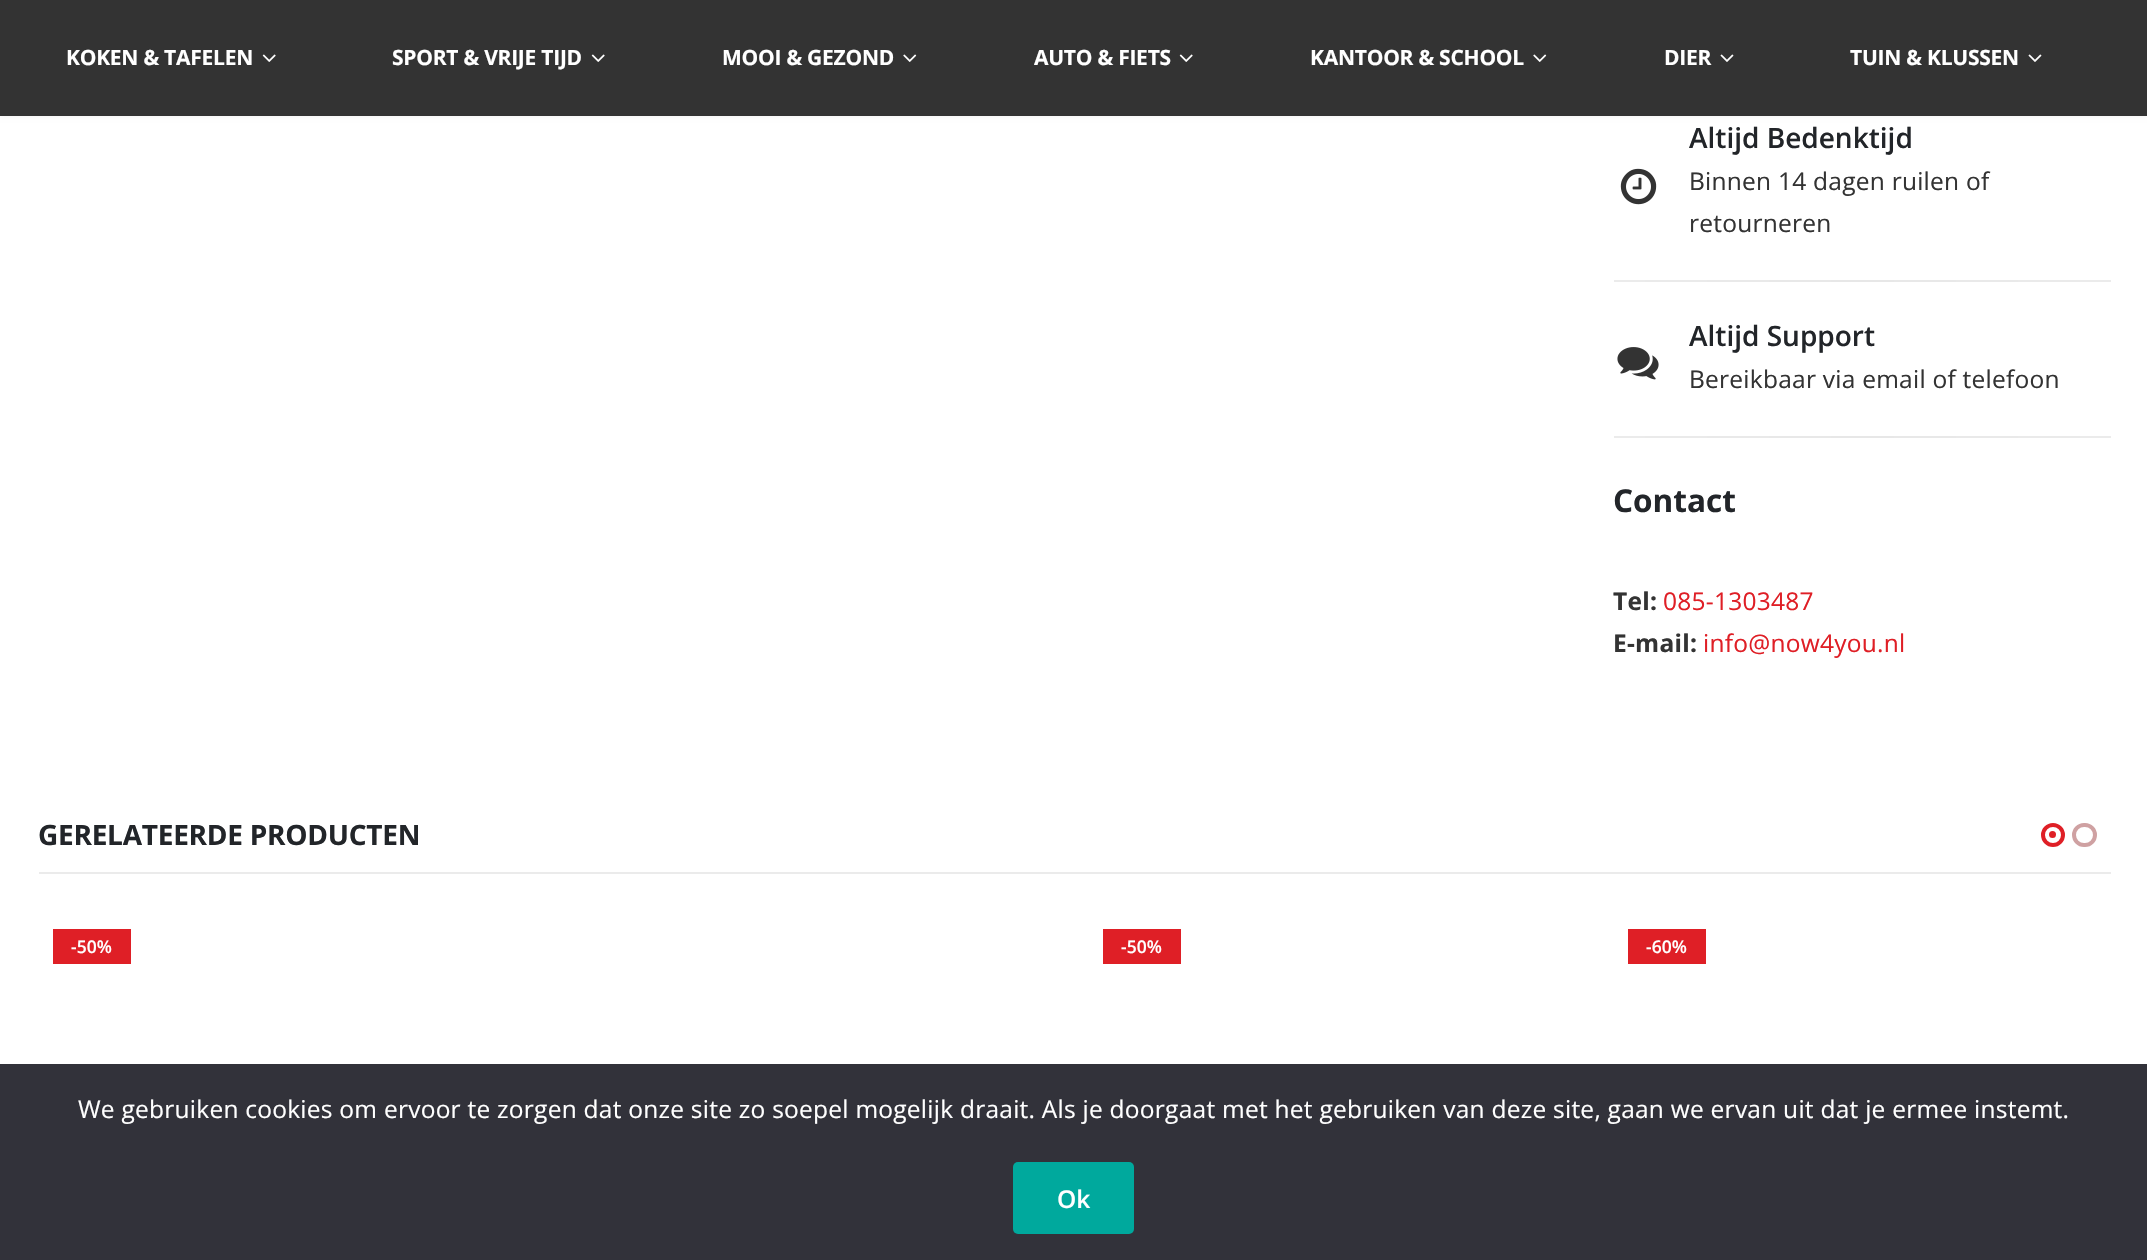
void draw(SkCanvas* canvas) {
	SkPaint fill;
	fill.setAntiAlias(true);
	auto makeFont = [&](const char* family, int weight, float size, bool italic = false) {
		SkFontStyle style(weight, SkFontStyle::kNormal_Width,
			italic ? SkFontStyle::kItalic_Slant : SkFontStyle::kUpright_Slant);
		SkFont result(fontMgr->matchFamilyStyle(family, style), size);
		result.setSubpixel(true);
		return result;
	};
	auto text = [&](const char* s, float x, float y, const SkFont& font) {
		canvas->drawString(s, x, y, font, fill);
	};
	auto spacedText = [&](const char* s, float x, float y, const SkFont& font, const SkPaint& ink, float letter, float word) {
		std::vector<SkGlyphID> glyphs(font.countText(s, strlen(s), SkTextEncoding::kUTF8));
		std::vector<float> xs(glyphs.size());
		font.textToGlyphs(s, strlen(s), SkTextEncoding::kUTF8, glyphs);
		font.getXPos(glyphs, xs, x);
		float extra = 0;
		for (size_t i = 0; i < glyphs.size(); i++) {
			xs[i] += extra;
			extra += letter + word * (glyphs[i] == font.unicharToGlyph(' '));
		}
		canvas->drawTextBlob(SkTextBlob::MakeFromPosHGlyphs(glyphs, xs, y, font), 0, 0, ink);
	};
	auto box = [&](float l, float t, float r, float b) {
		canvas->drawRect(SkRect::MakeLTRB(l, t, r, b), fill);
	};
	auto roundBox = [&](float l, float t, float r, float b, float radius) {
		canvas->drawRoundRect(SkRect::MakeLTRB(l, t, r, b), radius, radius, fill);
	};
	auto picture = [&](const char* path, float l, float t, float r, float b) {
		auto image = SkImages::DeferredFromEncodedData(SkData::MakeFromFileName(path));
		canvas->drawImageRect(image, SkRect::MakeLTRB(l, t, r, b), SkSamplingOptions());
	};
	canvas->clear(0xFFFFFFFF);
	fill.setColor(0x0F000000);
	fill.setMaskFilter(SkMaskFilter::MakeBlur(kNormal_SkBlurStyle, 2.5f));
	canvas->drawRect(SkRect::MakeLTRB(0, 0, 2147, 116), fill);
	fill.setMaskFilter(nullptr);
	fill.setColor(0xFF333333);
	box(0, 0, 2147, 116);
	picture("image0.png", 262, 54, 276, 62);
	picture("image0.png", 591, 54, 605, 62);
	picture("image1.png", 903, 54, 917, 62);
	picture("image0.png", 1179, 54, 1193, 62);
	picture("image1.png", 1533, 54, 1547, 62);
	picture("image2.png", 1720, 54, 1734, 62);
	picture("image2.png", 2028, 54, 2042, 62);
	picture("image3.png", 1620, 168, 1657, 205);
	{
		const SkColor colors[] = {0xFFEBEBEB, 0xFFE7E7E7, 0xFFEBEBEB};
		const float stops[] = {0, 0.5f, 1};
		const SkPoint ends[] = {{1614, 281}, {2111, 281}};
		fill.setShader(SkGradientShader::MakeLinear(ends, colors, stops, 3, SkTileMode::kClamp));
		fill.setAlpha(255);
	}
	box(1614, 280, 2111, 282);
	picture("image4.png", 1617, 347, 1659, 380);
	{
		const SkColor colors[] = {0xFFEBEBEB, 0xFFE7E7E7, 0xFFEBEBEB};
		const float stops[] = {0, 0.5f, 1};
		const SkPoint ends[] = {{1614, 437}, {2111, 437}};
		fill.setShader(SkGradientShader::MakeLinear(ends, colors, stops, 3, SkTileMode::kClamp));
		fill.setAlpha(255);
	}
	box(1614, 436, 2111, 438);
	fill.setShader(nullptr);
	fill.setColor(0xFFEBEBEB);
	box(39, 872, 2111, 874);
	fill.setStyle(SkPaint::kStroke_Style);
	fill.setStrokeWidth(4);
	fill.setColor(0xFFDF1F26);
	canvas->drawCircle(2053, 835, 10, fill);
	fill.setStyle(SkPaint::kFill_Style);
	canvas->drawCircle(2052.5f, 834.5f, 3.5f, fill);
	fill.setStyle(SkPaint::kStroke_Style);
	fill.setColor(0xFFCFA1A2);
	canvas->drawRoundRect(SkRect::MakeLTRB(2074, 825, 2095, 845), 10, 10, fill);
	fill.setStyle(SkPaint::kFill_Style);
	fill.setColor(0xFFDF1F26);
	box(53, 929, 131, 964);
	box(1103, 929, 1181, 964);
	box(1628, 929, 1706, 964);
	fill.setColor(0xFF32323A);
	box(0, 1064, 2147, 1260);
	fill.setColor(0xFF00A99D);
	roundBox(1013, 1162, 1134, 1234, 5);
	auto font1 = makeFont("Open Sans", 700, 21);
	fill.setColor(0xFFFFFFFF);
	spacedText("KOKEN & TAFELEN", 66, 65, font1, fill, -0.25f, 0);
	spacedText("SPORT & VRIJE TIJD", 392, 65, font1, fill, -0.25f, 0);
	spacedText("MOOI & GEZOND", 722, 65, font1, fill, -0.25f, 0);
	spacedText("AUTO & FIETS", 1034, 65, font1, fill, -0.25f, 0);
	spacedText("KANTOOR & SCHOOL", 1310, 65, font1, fill, -0.25f, 0);
	spacedText("DIER", 1664, 65, font1, fill, -0.25f, 0);
	spacedText("TUIN & KLUSSEN", 1850, 65, font1, fill, -0.25f, 0);
	auto font2 = makeFont("Open Sans", 600, 28);
	fill.setColor(0xFF222529);
	text("Altijd Bedenktijd", 1689, 148, font2);
	auto font3 = makeFont("Open Sans", 400, 24.5f);
	fill.setColor(0xFF333333);
	spacedText("Binnen 14 dagen ruilen of", 1689, 190, font3, fill, 0.25f, 0);
	spacedText("retourneren", 1689, 232, font3, fill, 0.25f, 0);
	fill.setColor(0xFF222529);
	text("Altijd Support", 1689, 346, font2);
	fill.setColor(0xFF333333);
	spacedText("Bereikbaar via email of telefoon", 1689, 388, font3, fill, 0.25f, 0);
	auto font4 = makeFont("Open Sans", 700, 31.5f);
	fill.setColor(0xFF222529);
	text("Contact", 1613, 512, font4);
	auto font5 = makeFont("Open Sans", 700, 24.5f);
	fill.setColor(0xFF333333);
	spacedText("Tel:", 1613, 610, font5, fill, 0.25f, 0);
	fill.setColor(0xFFDF1F26);
	spacedText("085-1303487", 1663, 610, font3, fill, 0.25f, 0);
	fill.setColor(0xFF333333);
	spacedText("E-mail:", 1613, 652, font5, fill, 0.25f, 0);
	fill.setColor(0xFFDF1F26);
	spacedText("info@now4you.nl", 1703, 652, font3, fill, 0.25f, 0);
	auto font6 = makeFont("Open Sans", 700, 28);
	fill.setColor(0xFF222529);
	spacedText("GERELATEERDE PRODUCTEN", 38, 845, font6, fill, -0.25f, 0);
	auto font7 = makeFont("Open Sans", 600, 17.5f);
	fill.setColor(0xFFFFFFFF);
	text("-50%", 71, 953, font7);
	text("-50%", 1121, 953, font7);
	text("-60%", 1646, 953, font7);
	spacedText("We gebruiken cookies om ervoor te zorgen dat onze site zo soepel mogelijk draait. Als je doorgaat met het gebruiken van deze site, gaan we ervan uit dat je ermee instemt.", 78, 1118, font3, fill, 0.25f, 0);
	auto font8 = makeFont("Open Sans", 600, 24.5f);
	text("Ok", 1057, 1208, font8);
}
